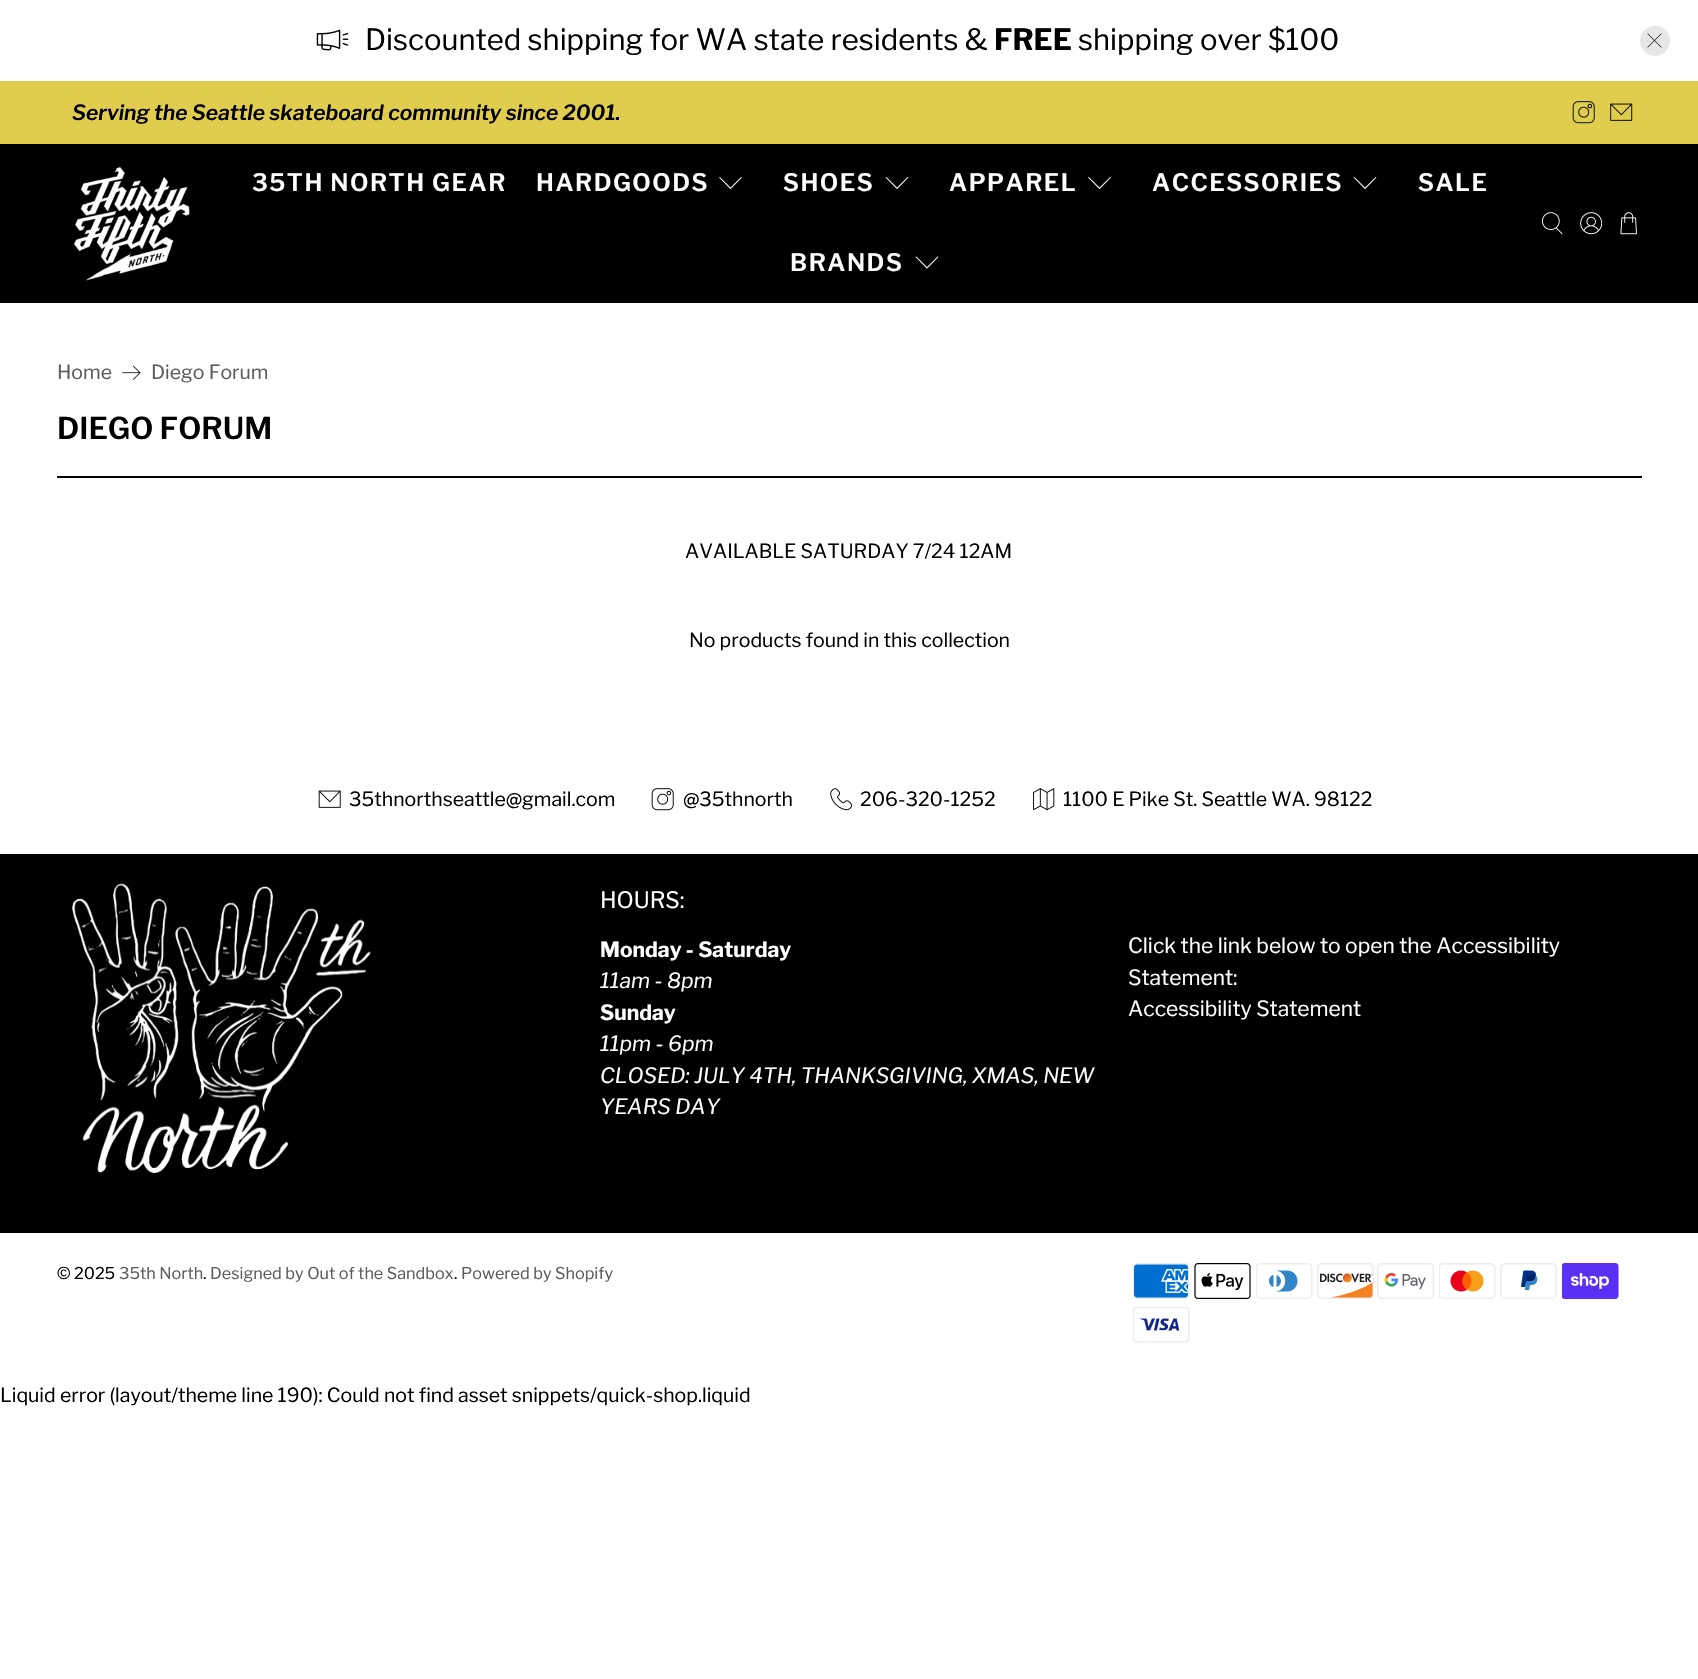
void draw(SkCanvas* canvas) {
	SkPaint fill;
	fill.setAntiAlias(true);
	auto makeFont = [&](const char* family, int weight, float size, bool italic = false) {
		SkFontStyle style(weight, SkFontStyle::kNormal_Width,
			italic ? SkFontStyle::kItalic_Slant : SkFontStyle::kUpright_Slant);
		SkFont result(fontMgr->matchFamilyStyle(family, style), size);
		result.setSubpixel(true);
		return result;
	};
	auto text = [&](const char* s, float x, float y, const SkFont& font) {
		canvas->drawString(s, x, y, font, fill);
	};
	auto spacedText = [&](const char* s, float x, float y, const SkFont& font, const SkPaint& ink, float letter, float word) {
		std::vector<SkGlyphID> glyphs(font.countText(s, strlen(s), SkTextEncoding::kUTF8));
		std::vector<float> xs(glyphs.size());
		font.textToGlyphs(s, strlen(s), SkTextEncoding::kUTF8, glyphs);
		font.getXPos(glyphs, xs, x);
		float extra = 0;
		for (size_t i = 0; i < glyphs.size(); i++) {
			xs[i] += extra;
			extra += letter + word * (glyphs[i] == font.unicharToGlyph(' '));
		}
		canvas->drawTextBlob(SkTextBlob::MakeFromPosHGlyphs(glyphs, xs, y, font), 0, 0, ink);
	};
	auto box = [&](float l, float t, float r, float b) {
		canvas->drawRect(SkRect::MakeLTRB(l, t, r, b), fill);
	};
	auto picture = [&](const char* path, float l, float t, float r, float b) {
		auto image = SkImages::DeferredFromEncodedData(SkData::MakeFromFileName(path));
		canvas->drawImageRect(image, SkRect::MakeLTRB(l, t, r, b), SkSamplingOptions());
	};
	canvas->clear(0xFFFFFFFF);
	picture("image0.png", 316, 29, 349, 51);
	fill.setColor(0xFFE6E6E6);
	canvas->drawCircle(1655, 41, 15, fill);
	picture("image1.png", 1647, 33, 1662, 48);
	fill.setColor(0xFFE1CD4D);
	box(0, 81, 1698, 144);
	picture("image2.png", 1572, 101, 1595, 124);
	picture("image3.png", 1610, 103, 1633, 121);
	fill.setColor(0xFF000000);
	box(0, 144, 1698, 303);
	picture("image4.png", 74, 167, 190, 281);
	picture("image5.png", 719, 177, 742, 189);
	picture("image6.png", 885, 177, 909, 189);
	picture("image5.png", 1088, 177, 1111, 189);
	picture("image6.png", 1353, 177, 1377, 189);
	picture("image7.png", 915, 256, 939, 269);
	picture("image8.png", 1541, 212, 1563, 235);
	picture("image9.png", 1580, 212, 1602, 235);
	picture("image10.png", 1620, 212, 1637, 235);
	picture("image11.png", 122, 365, 141, 380);
	box(57, 476, 1642, 478);
	picture("image12.png", 318, 790, 341, 808);
	picture("image13.png", 651, 788, 674, 811);
	picture("image14.png", 830, 788, 852, 811);
	picture("image15.png", 1033, 788, 1055, 811);
	box(0, 854, 1698, 1233);
	picture("image16.png", 72, 883, 371, 1173);
	picture("image17.png", 1133, 1263, 1190, 1299);
	picture("image18.png", 1194, 1263, 1251, 1299);
	picture("image19.png", 1256, 1263, 1313, 1299);
	picture("image20.png", 1317, 1263, 1374, 1299);
	picture("image21.png", 1377, 1263, 1434, 1299);
	picture("image22.png", 1439, 1263, 1496, 1299);
	picture("image23.png", 1500, 1263, 1557, 1299);
	picture("image24.png", 1562, 1263, 1619, 1299);
	picture("image25.png", 1133, 1307, 1190, 1343);
	auto font1 = makeFont("Libre Franklin", 400, 29.25f);
	text("Discounted shipping for WA state residents &", 365, 50, font1);
	auto font2 = makeFont("Libre Franklin", 700, 29.25f);
	text("FREE", 994, 50, font2);
	text("shipping over $100", 1078, 50, font1);
	auto font3 = makeFont("Libre Franklin", 600, 21, true);
	text("Serving the Seattle skateboard community since 2001.", 72, 120, font3);
	auto font4 = makeFont("Libre Franklin", 600, 24);
	fill.setColor(0xFFFFFFFF);
	spacedText("35TH NORTH GEAR", 252, 191, font4, fill, 1.5f, 0);
	spacedText("HARDGOODS", 536, 191, font4, fill, 1.5f, 0);
	spacedText("SHOES", 783, 191, font4, fill, 1.5f, 0);
	spacedText("APPAREL", 949, 191, font4, fill, 1.5f, 0);
	spacedText("ACCESSORIES", 1152, 191, font4, fill, 1.5f, 0);
	spacedText("SALE", 1418, 191, font4, fill, 1.5f, 0);
	spacedText("BRANDS", 790, 271, font4, fill, 1.5f, 0);
	auto font5 = makeFont("Libre Franklin", 400, 19.5f);
	fill.setColor(0xFF5B5B5B);
	text("Home", 57, 379, font5);
	text("Diego Forum", 151, 379, font5);
	auto font6 = makeFont("Libre Franklin", 600, 30);
	fill.setColor(0xFF000000);
	text("DIEGO FORUM", 57, 439, font6);
	text("AVAILABLE SATURDAY 7/24 12AM", 685, 558, font5);
	text("No products found in this collection", 689, 647, font5);
	text("35thnorthseattle@gmail.com", 349, 806, font5);
	text("@35thnorth", 683, 806, font5);
	text("206-320-1252", 860, 806, font5);
	text("1100 E Pike St. Seattle WA. 98122", 1063, 806, font5);
	auto font7 = makeFont("Libre Franklin", 400, 22.5f);
	fill.setColor(0xFFFFFFFF);
	text("HOURS:", 600, 908, font7);
	auto font8 = makeFont("Libre Franklin", 700, 21);
	text("Monday - Saturday", 600, 957, font8);
	auto font9 = makeFont("Libre Franklin", 400, 21, true);
	text("11am - 8pm", 600, 988, font9);
	text("Sunday", 600, 1020, font8);
	text("11pm - 6pm", 600, 1051, font9);
	text("CLOSED: JULY 4TH, THANKSGIVING, XMAS, NEW", 600, 1083, font9);
	text("YEARS DAY", 600, 1114, font9);
	auto font10 = makeFont("Libre Franklin", 400, 21);
	text("Click the link below to open the Accessibility", 1128, 953, font10);
	text("Statement:", 1128, 985, font10);
	text("Accessibility Statement", 1128, 1016, font10);
	auto font11 = makeFont("Libre Franklin", 400, 16.25f);
	fill.setColor(0xFF000000);
	text("© 2025", 57, 1279, font11);
	fill.setColor(0xFF5B5B5B);
	text("35th North", 119, 1279, font11);
	fill.setColor(0xFF000000);
	text(".", 203, 1279, font11);
	fill.setColor(0xFF5B5B5B);
	text("Designed by Out of the Sandbox", 210, 1279, font11);
	fill.setColor(0xFF000000);
	text(".", 454, 1279, font11);
	fill.setColor(0xFF5B5B5B);
	text("Powered by Shopify", 461, 1279, font11);
	fill.setColor(0xFF000000);
	text("Liquid error (layout/theme line 190): Could not find asset snippets/quick-shop.liquid", 0, 1402, font5);
}
